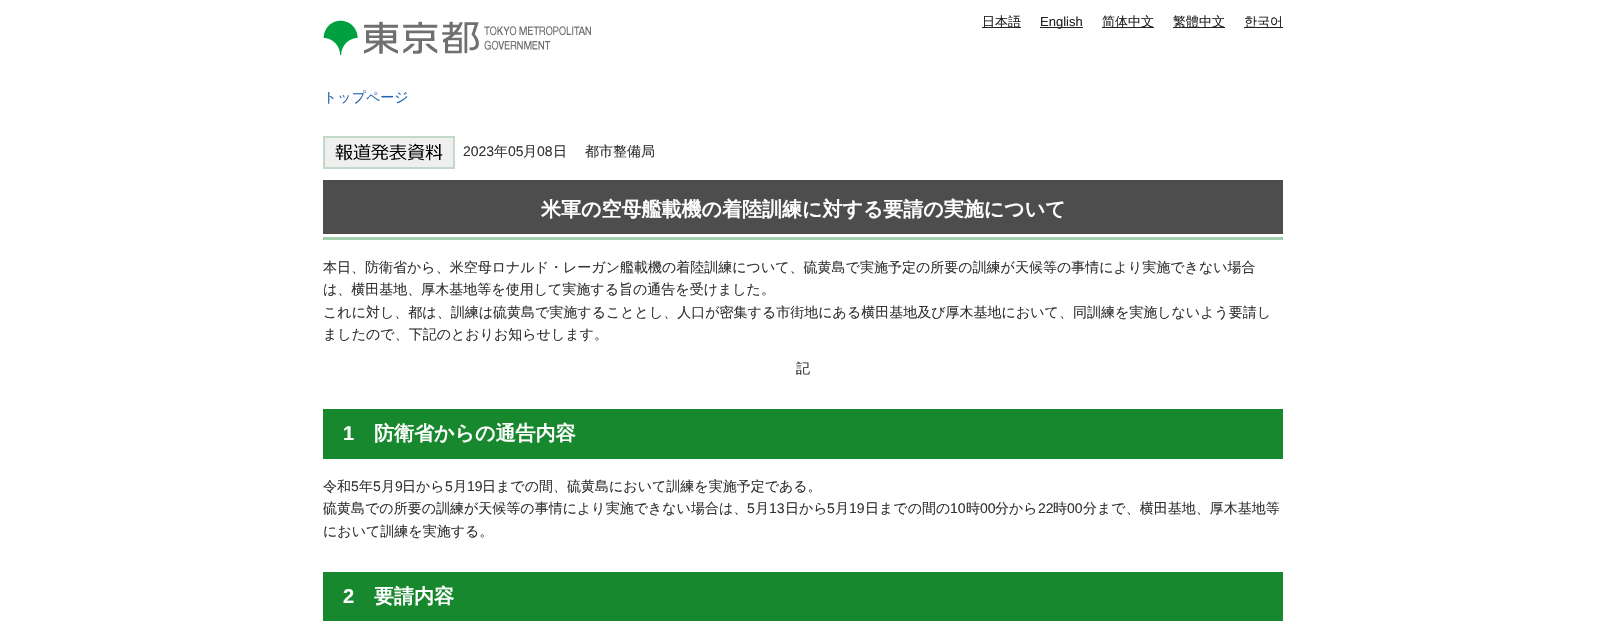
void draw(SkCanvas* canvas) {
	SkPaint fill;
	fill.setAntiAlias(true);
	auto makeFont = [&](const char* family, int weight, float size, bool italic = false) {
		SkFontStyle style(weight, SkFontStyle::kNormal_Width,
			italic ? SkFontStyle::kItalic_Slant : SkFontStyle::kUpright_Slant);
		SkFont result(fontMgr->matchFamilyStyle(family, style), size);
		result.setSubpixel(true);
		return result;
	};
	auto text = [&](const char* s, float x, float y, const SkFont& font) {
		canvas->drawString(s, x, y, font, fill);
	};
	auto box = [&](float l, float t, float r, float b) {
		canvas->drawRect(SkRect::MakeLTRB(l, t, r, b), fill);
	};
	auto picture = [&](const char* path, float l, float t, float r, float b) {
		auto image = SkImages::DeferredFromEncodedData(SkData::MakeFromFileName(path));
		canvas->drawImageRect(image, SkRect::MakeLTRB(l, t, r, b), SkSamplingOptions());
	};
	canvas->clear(0xFFFFFFFF);
	picture("image0.png", 323, 20, 591, 55);
	fill.setColor(0xFF222222);
	box(982, 27, 1021, 28);
	box(1040, 27, 1083, 28);
	box(1102, 27, 1154, 28);
	box(1173, 27, 1225, 28);
	box(1244, 27, 1283, 28);
	picture("image1.png", 323, 136, 455, 169);
	fill.setColor(0xFF4D4D4D);
	box(323, 180, 1283, 234);
	picture("image2.png", 323, 234, 1283, 240);
	fill.setColor(0xFF17882E);
	box(323, 409, 1283, 459);
	box(323, 572, 1283, 621);
	auto font1 = makeFont("WenQuanYi Zen Hei", 500, 13);
	fill.setColor(0xFF222222);
	text("日本語", 982, 26, font1);
	auto font2 = makeFont("Liberation Sans", 400, 13);
	text("English", 1040, 26, font2);
	text("简体中文", 1102, 26, font1);
	text("繁體中文", 1173, 26, font1);
	text("한국어", 1244, 26, font1);
	auto font3 = makeFont("WenQuanYi Zen Hei", 500, 14);
	fill.setColor(0xFF2463B0);
	text("トップページ", 323, 102, font3);
	auto font4 = makeFont("Liberation Sans", 400, 14);
	fill.setColor(0xFF333333);
	text("2023", 463, 156, font4);
	text("年", 494, 156, font3);
	text("05", 508, 156, font4);
	text("月", 523, 156, font3);
	text("08", 537, 156, font4);
	text("日", 553, 156, font3);
	text("都市整備局", 585, 156, font3);
	auto font5 = makeFont("WenQuanYi Zen Hei", 700, 20);
	fill.setColor(0xFFFFFFFF);
	text("米軍の空母艦載機の着陸訓練に対する要請の実施について", 541, 216, font5);
	fill.setColor(0xFF333333);
	text("本日、防衛省から、米空母ロナルド・レーガン艦載機の着陸訓練について、硫黄島で実施予定の所要の訓練が天候等の事情により実施できない場合", 323, 272, font3);
	text("は、横田基地、厚木基地等を使用して実施する旨の通告を受けました。", 323, 294, font3);
	text("これに対し、都は、訓練は硫黄島で実施することとし、人口が密集する市街地にある横田基地及び厚木基地において、同訓練を実施しないよう要請し", 323, 317, font3);
	text("ましたので、下記のとおりお知らせします。", 323, 339, font3);
	text("記", 796, 373, font3);
	auto font6 = makeFont("Liberation Sans", 700, 20);
	fill.setColor(0xFFFFFFFF);
	text("1", 343, 440, font6);
	text("防衛省からの通告内容", 374, 440, font5);
	fill.setColor(0xFF333333);
	text("令和", 323, 491, font3);
	text("5", 351, 491, font4);
	text("年", 359, 491, font3);
	text("5", 373, 491, font4);
	text("月", 381, 491, font3);
	text("9", 395, 491, font4);
	text("日から", 402, 491, font3);
	text("5", 445, 491, font4);
	text("月", 453, 491, font3);
	text("19", 467, 491, font4);
	text("日までの間、硫黄島において訓練を実施予定である。", 482, 491, font3);
	text("硫黄島での所要の訓練が天候等の事情により実施できない場合は、", 323, 513, font3);
	text("5", 747, 513, font4);
	text("月", 755, 513, font3);
	text("13", 769, 513, font4);
	text("日から", 785, 513, font3);
	text("5", 827, 513, font4);
	text("月", 835, 513, font3);
	text("19", 849, 513, font4);
	text("日までの間の", 865, 513, font3);
	text("10", 950, 513, font4);
	text("時", 966, 513, font3);
	text("00", 980, 513, font4);
	text("分から", 995, 513, font3);
	text("22", 1038, 513, font4);
	text("時", 1053, 513, font3);
	text("00", 1067, 513, font4);
	text("分まで、横田基地、厚木基地等", 1083, 513, font3);
	text("において訓練を実施する。", 323, 536, font3);
	fill.setColor(0xFFFFFFFF);
	text("2", 343, 603, font6);
	text("要請内容", 374, 603, font5);
}
